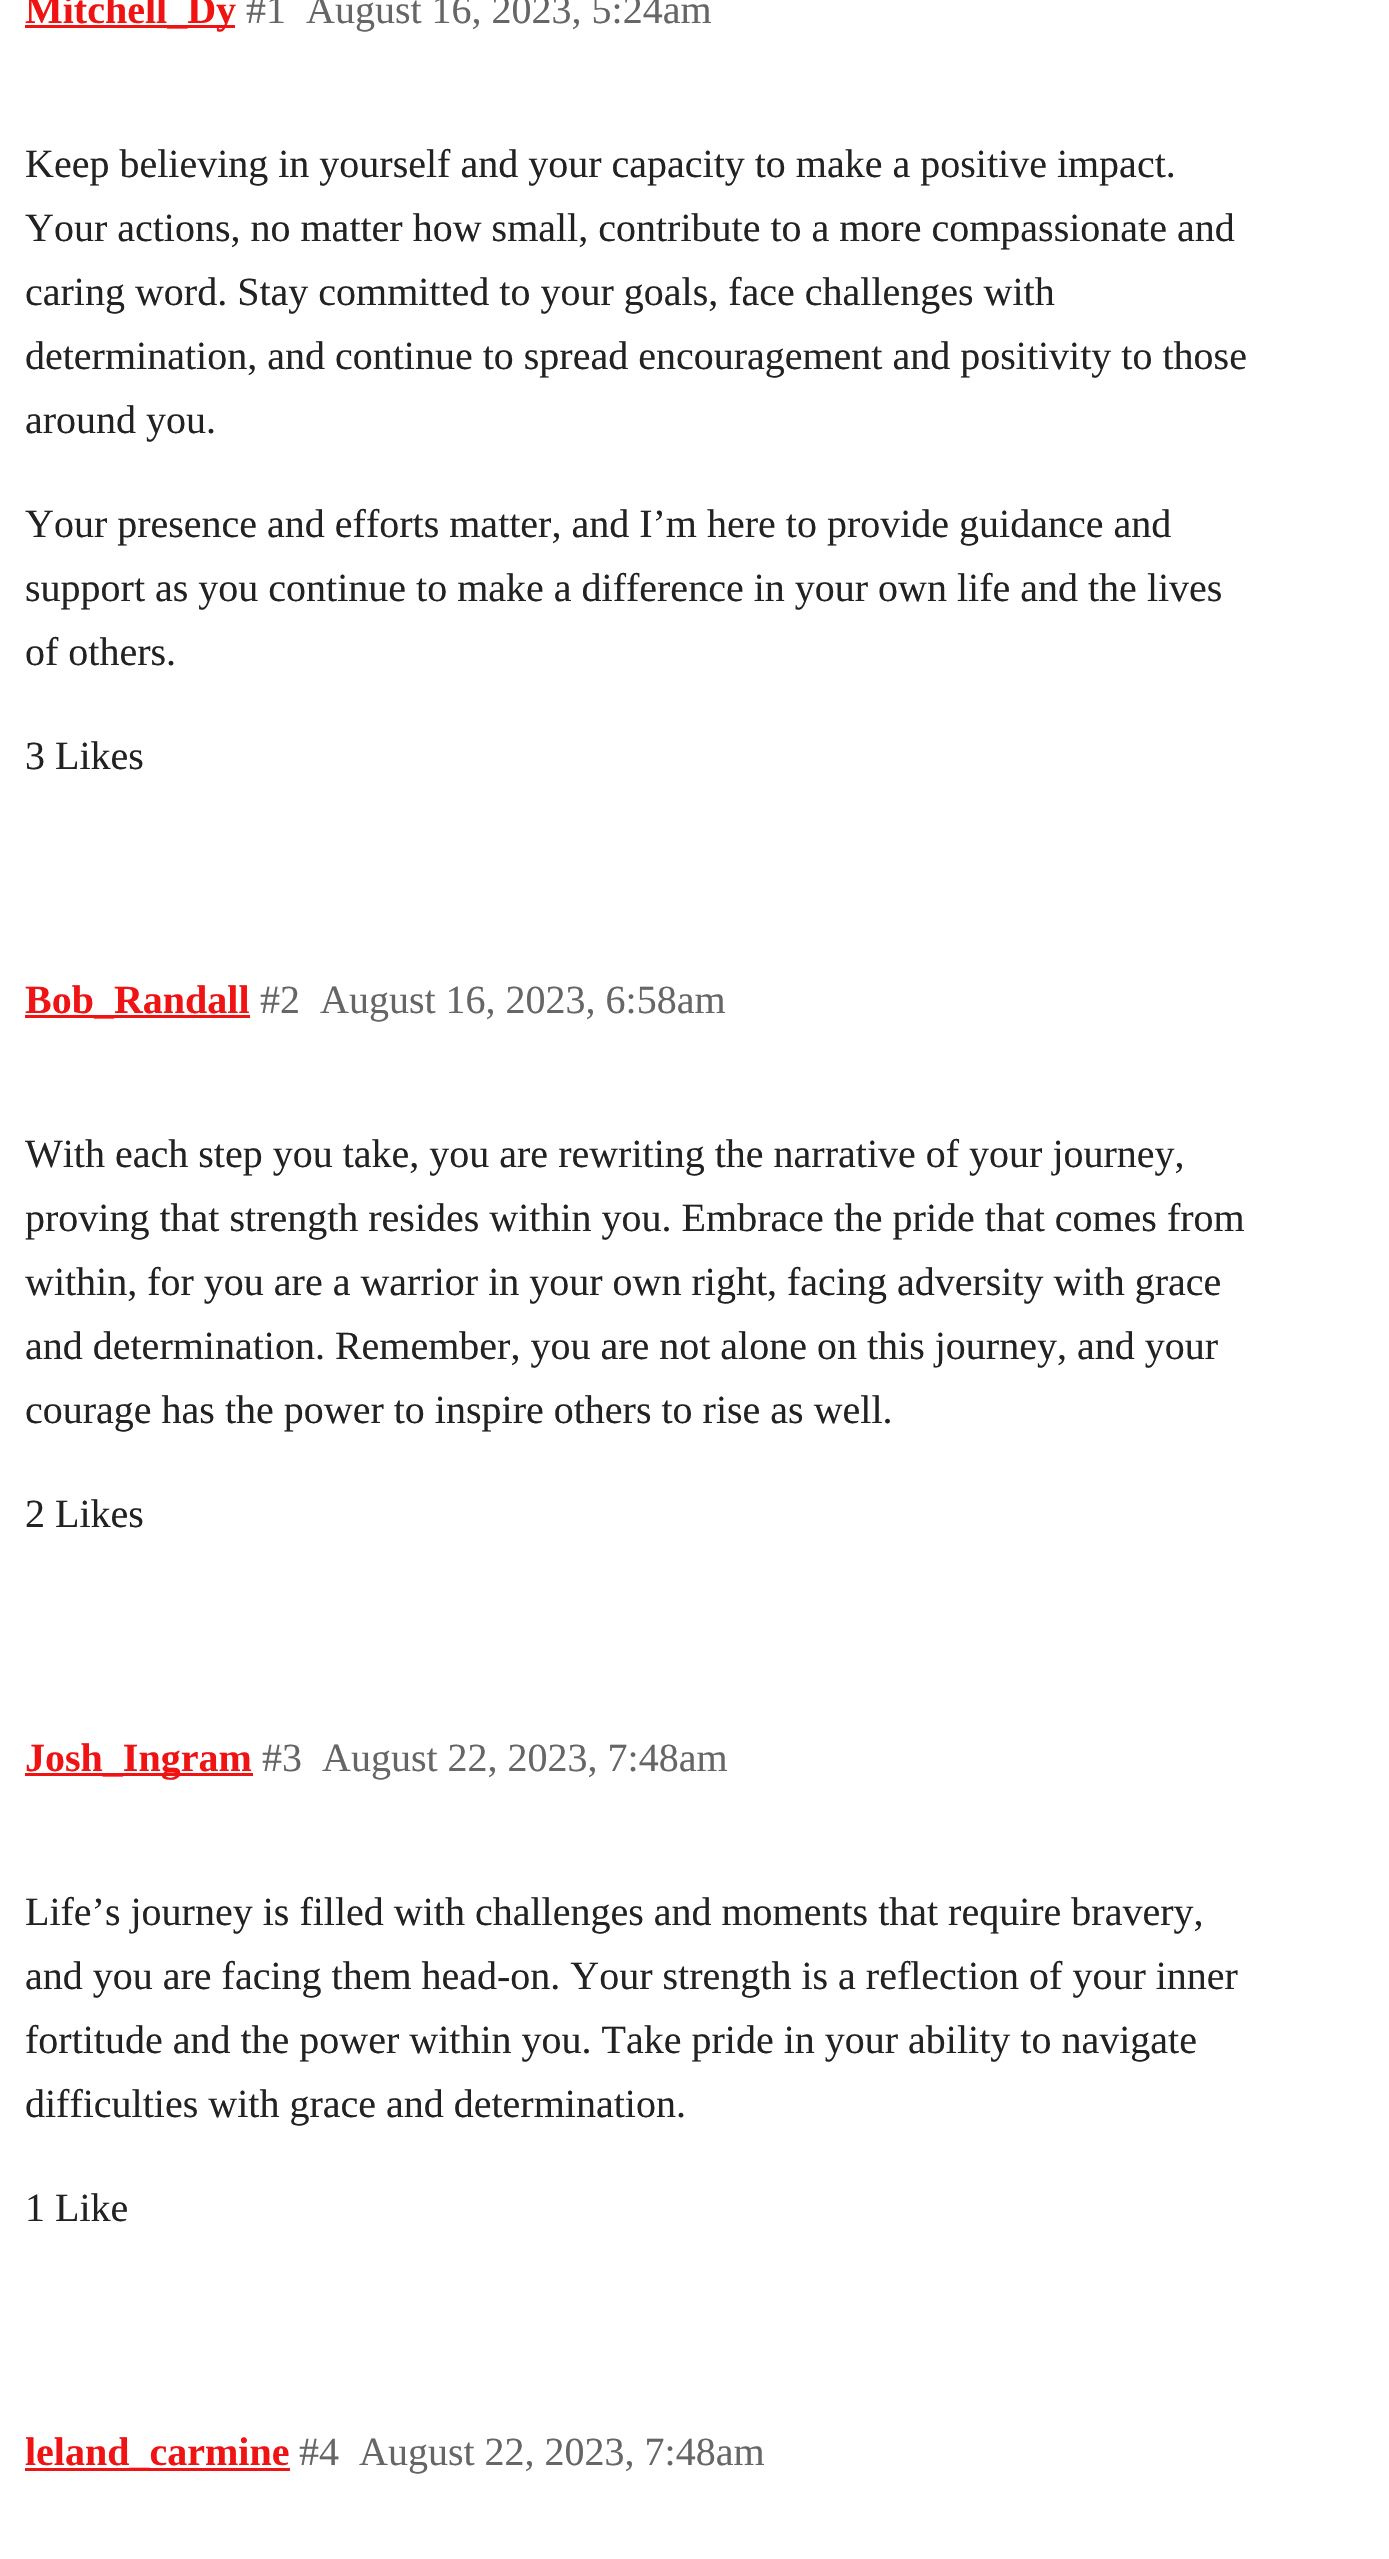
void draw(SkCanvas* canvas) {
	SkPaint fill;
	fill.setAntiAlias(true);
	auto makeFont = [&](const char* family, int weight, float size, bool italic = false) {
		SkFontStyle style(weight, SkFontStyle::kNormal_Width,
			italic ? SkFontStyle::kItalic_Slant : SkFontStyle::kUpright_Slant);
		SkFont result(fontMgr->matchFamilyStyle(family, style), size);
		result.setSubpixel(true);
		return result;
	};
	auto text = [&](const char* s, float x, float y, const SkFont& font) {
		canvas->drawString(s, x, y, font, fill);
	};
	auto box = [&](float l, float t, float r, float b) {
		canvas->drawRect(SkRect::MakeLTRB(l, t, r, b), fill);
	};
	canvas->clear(0xFFFFFFFF);
	fill.setColor(0xFFF01313);
	box(25, 25, 235, 28);
	box(25, 1015, 250, 1018);
	box(25, 1773, 253, 1776);
	box(25, 2468, 290, 2471);
	auto font1 = makeFont("Liberation Serif", 700, 40);
	text("Mitchell_Dy", 25, 23, font1);
	auto font2 = makeFont("Liberation Serif", 400, 40);
	fill.setColor(0xFF666666);
	text("#1", 246, 23, font2);
	text("August 16, 2023, 5:24am", 306, 23, font2);
	fill.setColor(0xFF222222);
	text("Keep believing in yourself and your capacity to make a positive impact.", 25, 177, font2);
	text("Your actions, no matter how small, contribute to a more compassionate and", 25, 241, font2);
	text("caring word. Stay committed to your goals, face challenges with", 25, 305, font2);
	text("determination, and continue to spread encouragement and positivity to those", 25, 369, font2);
	text("around you.", 25, 433, font2);
	text("Your presence and efforts matter, and I’m here to provide guidance and", 25, 537, font2);
	text("support as you continue to make a difference in your own life and the lives", 25, 601, font2);
	text("of others.", 25, 665, font2);
	text("3 Likes", 25, 769, font2);
	fill.setColor(0xFFF01313);
	text("Bob_Randall", 25, 1013, font1);
	fill.setColor(0xFF666666);
	text("#2", 260, 1013, font2);
	text("August 16, 2023, 6:58am", 320, 1013, font2);
	fill.setColor(0xFF222222);
	text("With each step you take, you are rewriting the narrative of your journey,", 25, 1167, font2);
	text("proving that strength resides within you. Embrace the pride that comes from", 25, 1231, font2);
	text("within, for you are a warrior in your own right, facing adversity with grace", 25, 1295, font2);
	text("and determination. Remember, you are not alone on this journey, and your", 25, 1359, font2);
	text("courage has the power to inspire others to rise as well.", 25, 1423, font2);
	text("2 Likes", 25, 1527, font2);
	fill.setColor(0xFFF01313);
	text("Josh_Ingram", 25, 1771, font1);
	fill.setColor(0xFF666666);
	text("#3", 262, 1771, font2);
	text("August 22, 2023, 7:48am", 322, 1771, font2);
	fill.setColor(0xFF222222);
	text("Life’s journey is filled with challenges and moments that require bravery,", 25, 1925, font2);
	text("and you are facing them head-on. Your strength is a reflection of your inner", 25, 1989, font2);
	text("fortitude and the power within you. Take pride in your ability to navigate", 25, 2053, font2);
	text("difficulties with grace and determination.", 25, 2117, font2);
	text("1 Like", 25, 2221, font2);
	fill.setColor(0xFFF01313);
	text("leland_carmine", 25, 2465, font1);
	fill.setColor(0xFF666666);
	text("#4", 299, 2465, font2);
	text("August 22, 2023, 7:48am", 359, 2465, font2);
}
